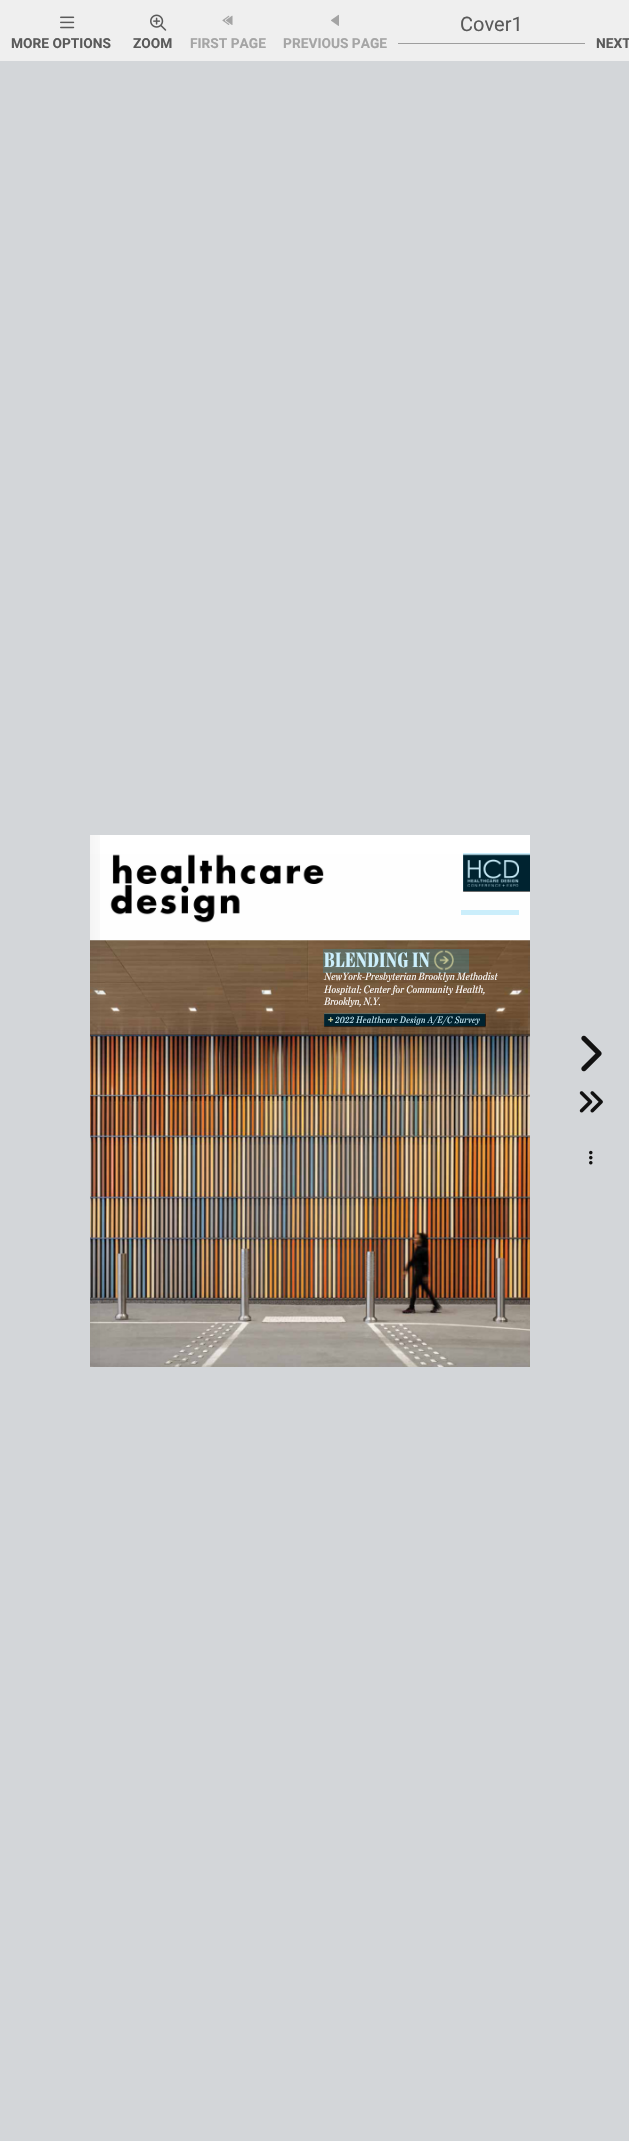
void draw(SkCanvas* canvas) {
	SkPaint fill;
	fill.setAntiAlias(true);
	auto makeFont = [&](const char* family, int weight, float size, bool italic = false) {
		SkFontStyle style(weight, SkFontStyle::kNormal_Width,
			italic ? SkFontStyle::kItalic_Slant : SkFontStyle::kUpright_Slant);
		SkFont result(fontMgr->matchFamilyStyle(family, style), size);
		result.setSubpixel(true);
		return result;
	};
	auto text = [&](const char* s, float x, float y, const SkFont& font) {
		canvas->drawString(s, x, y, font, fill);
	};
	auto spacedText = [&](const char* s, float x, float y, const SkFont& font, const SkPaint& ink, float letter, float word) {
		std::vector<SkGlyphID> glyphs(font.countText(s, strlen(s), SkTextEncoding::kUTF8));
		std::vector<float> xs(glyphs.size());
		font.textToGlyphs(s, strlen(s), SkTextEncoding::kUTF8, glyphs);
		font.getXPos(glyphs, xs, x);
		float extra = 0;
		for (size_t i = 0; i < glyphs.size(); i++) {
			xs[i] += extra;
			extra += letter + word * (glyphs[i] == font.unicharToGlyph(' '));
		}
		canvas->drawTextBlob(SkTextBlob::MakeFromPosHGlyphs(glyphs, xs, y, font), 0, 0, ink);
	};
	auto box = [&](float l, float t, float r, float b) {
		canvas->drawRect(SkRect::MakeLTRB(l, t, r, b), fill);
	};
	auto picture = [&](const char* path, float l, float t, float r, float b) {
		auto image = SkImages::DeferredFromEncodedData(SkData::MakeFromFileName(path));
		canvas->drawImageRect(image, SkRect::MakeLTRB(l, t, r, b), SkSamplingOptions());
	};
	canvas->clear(0xFFD3D6D9);
	fill.setColor(0xFFEFEFEF);
	box(0, 0, 629, 61);
	picture("image0.png", 60, 16, 75, 29);
	fill.setColor(0xFF9E9E9E);
	box(398, 43, 585, 44);
	picture("image1.png", 150, 14, 167, 31);
	picture("image2.png", 222, 15, 233, 25);
	picture("image3.png", 331, 14, 339, 26);
	fill.setColor(0xFFFFFFFF);
	box(90, 835, 530, 854);
	picture("image4.png", 90, 854, 530, 1367);
	{
		const SkColor colors[] = {0x00000000, 0x0A000000};
		const float stops[] = {0.95f, 1};
		const SkPoint ends[] = {{530, 1102}, {90, 1102}};
		fill.setShader(SkGradientShader::MakeLinear(ends, colors, stops, 2, SkTileMode::kClamp));
		fill.setAlpha(255);
	}
	box(90, 835, 100, 1366);
	fill.setShader(nullptr);
	fill.setColor(0x3300AEEF);
	box(463, 853, 530, 891);
	fill.setColor(0xFFCBEEFB);
	box(461, 910, 519, 915);
	picture("image5.png", 581, 1035, 602, 1072);
	picture("image6.png", 579, 1091, 603, 1113);
	picture("image7.png", 589, 1150, 593, 1165);
	auto font1 = makeFont("Roboto", 700, 13.75f);
	fill.setColor(0xFF5A5A5A);
	text("MORE OPTIONS", 11, 48, font1);
	auto font2 = makeFont("Roboto", 400, 20);
	text("Cover1", 460, 31, font2);
	text("ZOOM", 133, 48, font1);
	fill.setColor(0xFFA5A5A5);
	text("FIRST PAGE", 190, 48, font1);
	text("PREVIOUS PAGE", 283, 48, font1);
	fill.setColor(0xFF5A5A5A);
	text("NEXT", 596, 48, font1);
	auto font3 = makeFont("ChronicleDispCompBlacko", 900, 20.5f);
	fill.setColor(0xFFFFFFFF);
	spacedText("BLENDING IN", 324, 967, font3, fill, 0.75f, 0);
	auto font4 = makeFont("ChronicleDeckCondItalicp", 400, 10.7f);
	spacedText("NewYork-Presbyterian Brooklyn Methodist", 324, 980, font4, fill, 0.15f, 0);
	fill.setColor(0x3300AEEF);
	box(323, 949, 469, 973);
	fill.setColor(0xFFFFFFFF);
	spacedText("Hospital: Center for Community Health,", 324, 993, font4, fill, 0.2f, 0);
	text("Brooklyn, N.Y.", 324, 1005, font4);
	auto font5 = makeFont("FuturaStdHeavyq", 900, 9.3f);
	fill.setColor(0xFFF6CB7D);
	text("+", 328, 1022, font5);
	auto font6 = makeFont("ChronicleDeckCondItalicp", 400, 9.3f);
	fill.setColor(0xFFFFFFFF);
	spacedText("2022 Healthcare Design A/E/C Survey", 335, 1023, font6, fill, 0.4f, 0);
	fill.setColor(0x3300AEEF);
	box(324, 1013, 485, 1026);
}
